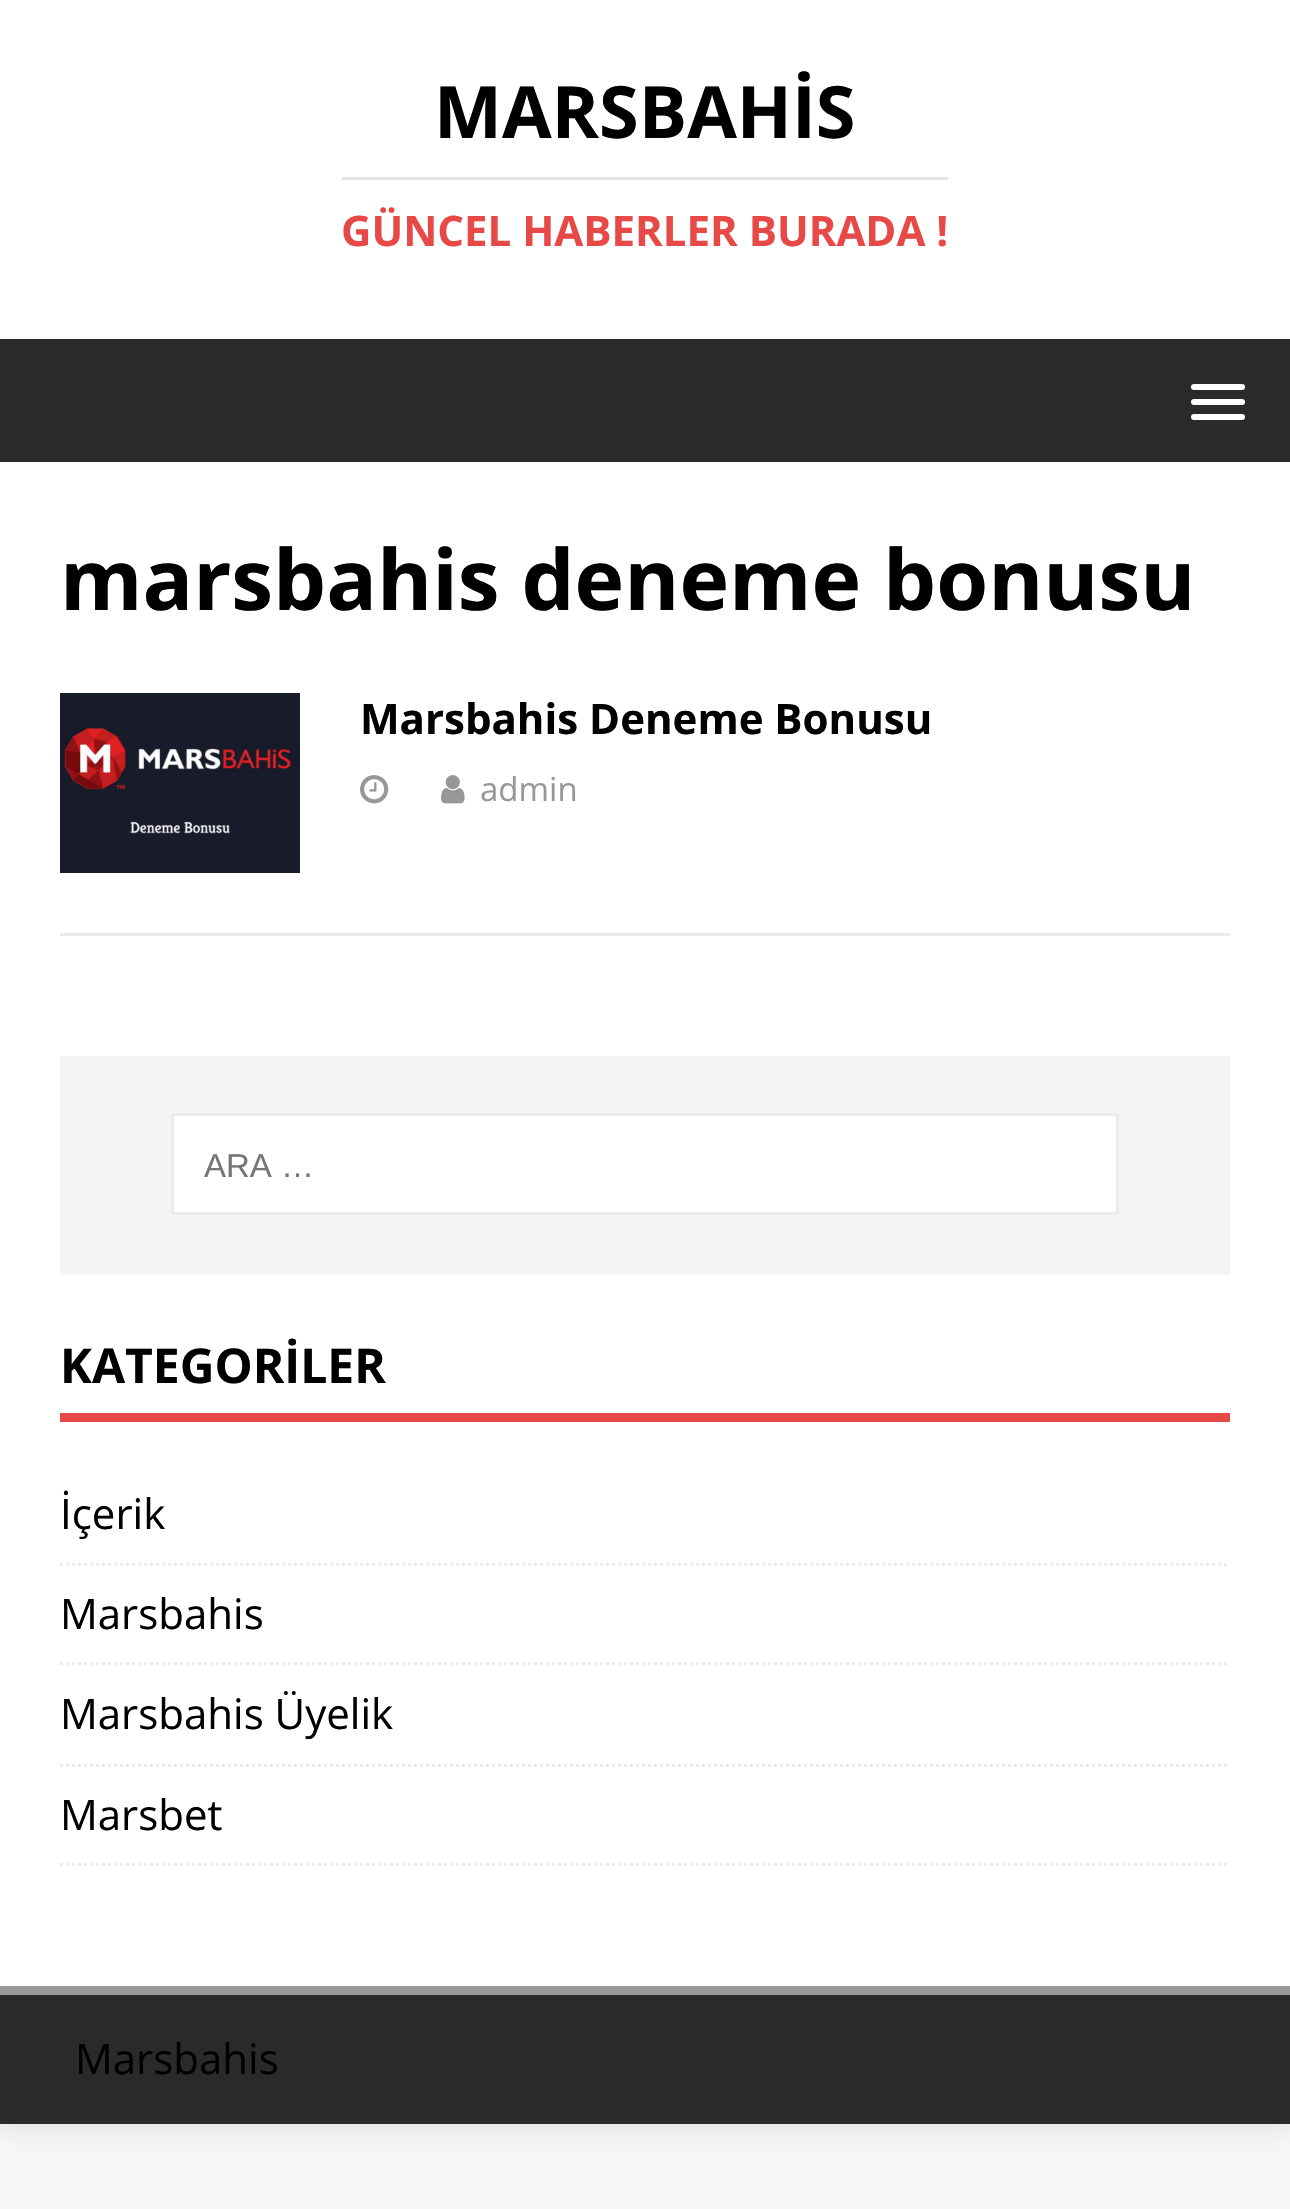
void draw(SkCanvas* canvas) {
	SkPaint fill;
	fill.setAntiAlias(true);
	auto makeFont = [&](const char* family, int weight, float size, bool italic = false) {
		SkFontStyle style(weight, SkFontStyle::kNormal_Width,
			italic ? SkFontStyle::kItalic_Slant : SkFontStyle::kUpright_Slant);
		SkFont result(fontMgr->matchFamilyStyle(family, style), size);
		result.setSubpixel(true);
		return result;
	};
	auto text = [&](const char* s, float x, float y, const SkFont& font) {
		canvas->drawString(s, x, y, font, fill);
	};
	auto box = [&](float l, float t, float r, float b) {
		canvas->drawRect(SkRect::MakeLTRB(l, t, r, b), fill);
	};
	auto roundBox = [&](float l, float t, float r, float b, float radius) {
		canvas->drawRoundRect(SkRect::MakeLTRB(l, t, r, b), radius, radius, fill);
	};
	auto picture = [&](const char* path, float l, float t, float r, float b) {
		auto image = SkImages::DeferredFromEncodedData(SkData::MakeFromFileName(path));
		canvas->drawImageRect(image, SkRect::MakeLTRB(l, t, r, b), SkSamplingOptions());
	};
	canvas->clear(0xFFF7F7F7);
	fill.setColor(0x2B323232);
	fill.setMaskFilter(SkMaskFilter::MakeBlur(kNormal_SkBlurStyle, 15));
	canvas->drawRect(SkRect::MakeLTRB(0, 0, 1290, 2124), fill);
	fill.setMaskFilter(nullptr);
	fill.setColor(0xFFFFFFFF);
	box(0, 0, 1290, 339);
	fill.setColor(0xFFE5E5E5);
	box(342, 177, 948, 180);
	fill.setColor(0xFF2A2A2A);
	box(0, 339, 1290, 462);
	fill.setColor(0xFFFFFFFF);
	roundBox(1191, 384, 1245, 390, 3);
	roundBox(1191, 399, 1245, 405, 3);
	roundBox(1191, 414, 1245, 420, 3);
	box(0, 462, 1290, 1986);
	fill.setColor(0xFFEBEBEB);
	box(60, 933, 1230, 936);
	picture("image0.png", 60, 693, 300, 873);
	picture("image1.png", 360, 775, 389, 804);
	picture("image2.png", 441, 775, 465, 804);
	fill.setColor(0xFFF5F5F5);
	box(60, 1056, 1230, 1275);
	fill.setColor(0xFFFFFFFF);
	canvas->drawRect(SkRect::MakeLTRB(172.5f, 1114.5f, 1117.5f, 1213.5f), fill);
	fill.setStyle(SkPaint::kStroke_Style);
	fill.setStrokeWidth(3);
	fill.setColor(0xFFEBEBEB);
	canvas->drawRect(SkRect::MakeLTRB(172.5f, 1114.5f, 1117.5f, 1213.5f), fill);
	fill.setStyle(SkPaint::kFill_Style);
	fill.setColor(0xFFE64946);
	box(60, 1413, 1230, 1422);
	fill.setStyle(SkPaint::kStroke_Style);
	fill.setColor(0xFFEBEBEB);
	fill.setPathEffect(SkDashPathEffect::Make({{3, 3}}, 0));
	canvas->drawPath(SkPathBuilder().moveTo(60, 1564.5f).lineTo(1230, 1564.5f).detach(), fill);
	fill.setPathEffect(nullptr);
	fill.setPathEffect(SkDashPathEffect::Make({{3, 3}}, 0));
	canvas->drawPath(SkPathBuilder().moveTo(60, 1663.5f).lineTo(1230, 1663.5f).detach(), fill);
	fill.setPathEffect(nullptr);
	fill.setPathEffect(SkDashPathEffect::Make({{3, 3}}, 0));
	canvas->drawPath(SkPathBuilder().moveTo(60, 1765.5f).lineTo(1230, 1765.5f).detach(), fill);
	fill.setPathEffect(nullptr);
	fill.setPathEffect(SkDashPathEffect::Make({{3, 3}}, 0));
	canvas->drawPath(SkPathBuilder().moveTo(60, 1864.5f).lineTo(1230, 1864.5f).detach(), fill);
	fill.setPathEffect(nullptr);
	fill.setStyle(SkPaint::kFill_Style);
	fill.setColor(0xFF2A2A2A);
	box(0, 1995, 1290, 2124);
	fill.setColor(0xFF999999);
	box(0, 1986, 1290, 1995);
	auto font1 = makeFont("Open Sans", 700, 72);
	fill.setColor(0xFF000000);
	text("MARSBAHİS", 434, 138, font1);
	auto font2 = makeFont("Open Sans", 700, 42);
	fill.setColor(0xFFE64946);
	text("GÜNCEL HABERLER BURADA !", 341, 246, font2);
	auto font3 = makeFont("Open Sans", 700, 84);
	fill.setColor(0xFF000000);
	text("marsbahis deneme bonusu", 60, 610, font3);
	text("Marsbahis Deneme Bonusu", 360, 734, font2);
	auto font4 = makeFont("Open Sans", 400, 33);
	fill.setColor(0xFF979797);
	text("admin", 480, 801, font4);
	auto font5 = makeFont("Liberation Sans", 400, 33);
	fill.setColor(0xFF757575);
	text("ARA …", 204, 1177, font5);
	auto font6 = makeFont("Open Sans", 700, 48);
	fill.setColor(0xFF000000);
	text("KATEGORİLER", 60, 1383, font6);
	auto font7 = makeFont("Open Sans", 400, 42);
	text("İçerik", 60, 1529, font7);
	text("Marsbahis", 60, 1629, font7);
	text("Marsbahis Üyelik", 60, 1729, font7);
	text("Marsbet", 60, 1830, font7);
	text("Marsbahis", 75, 2074, font7);
}
